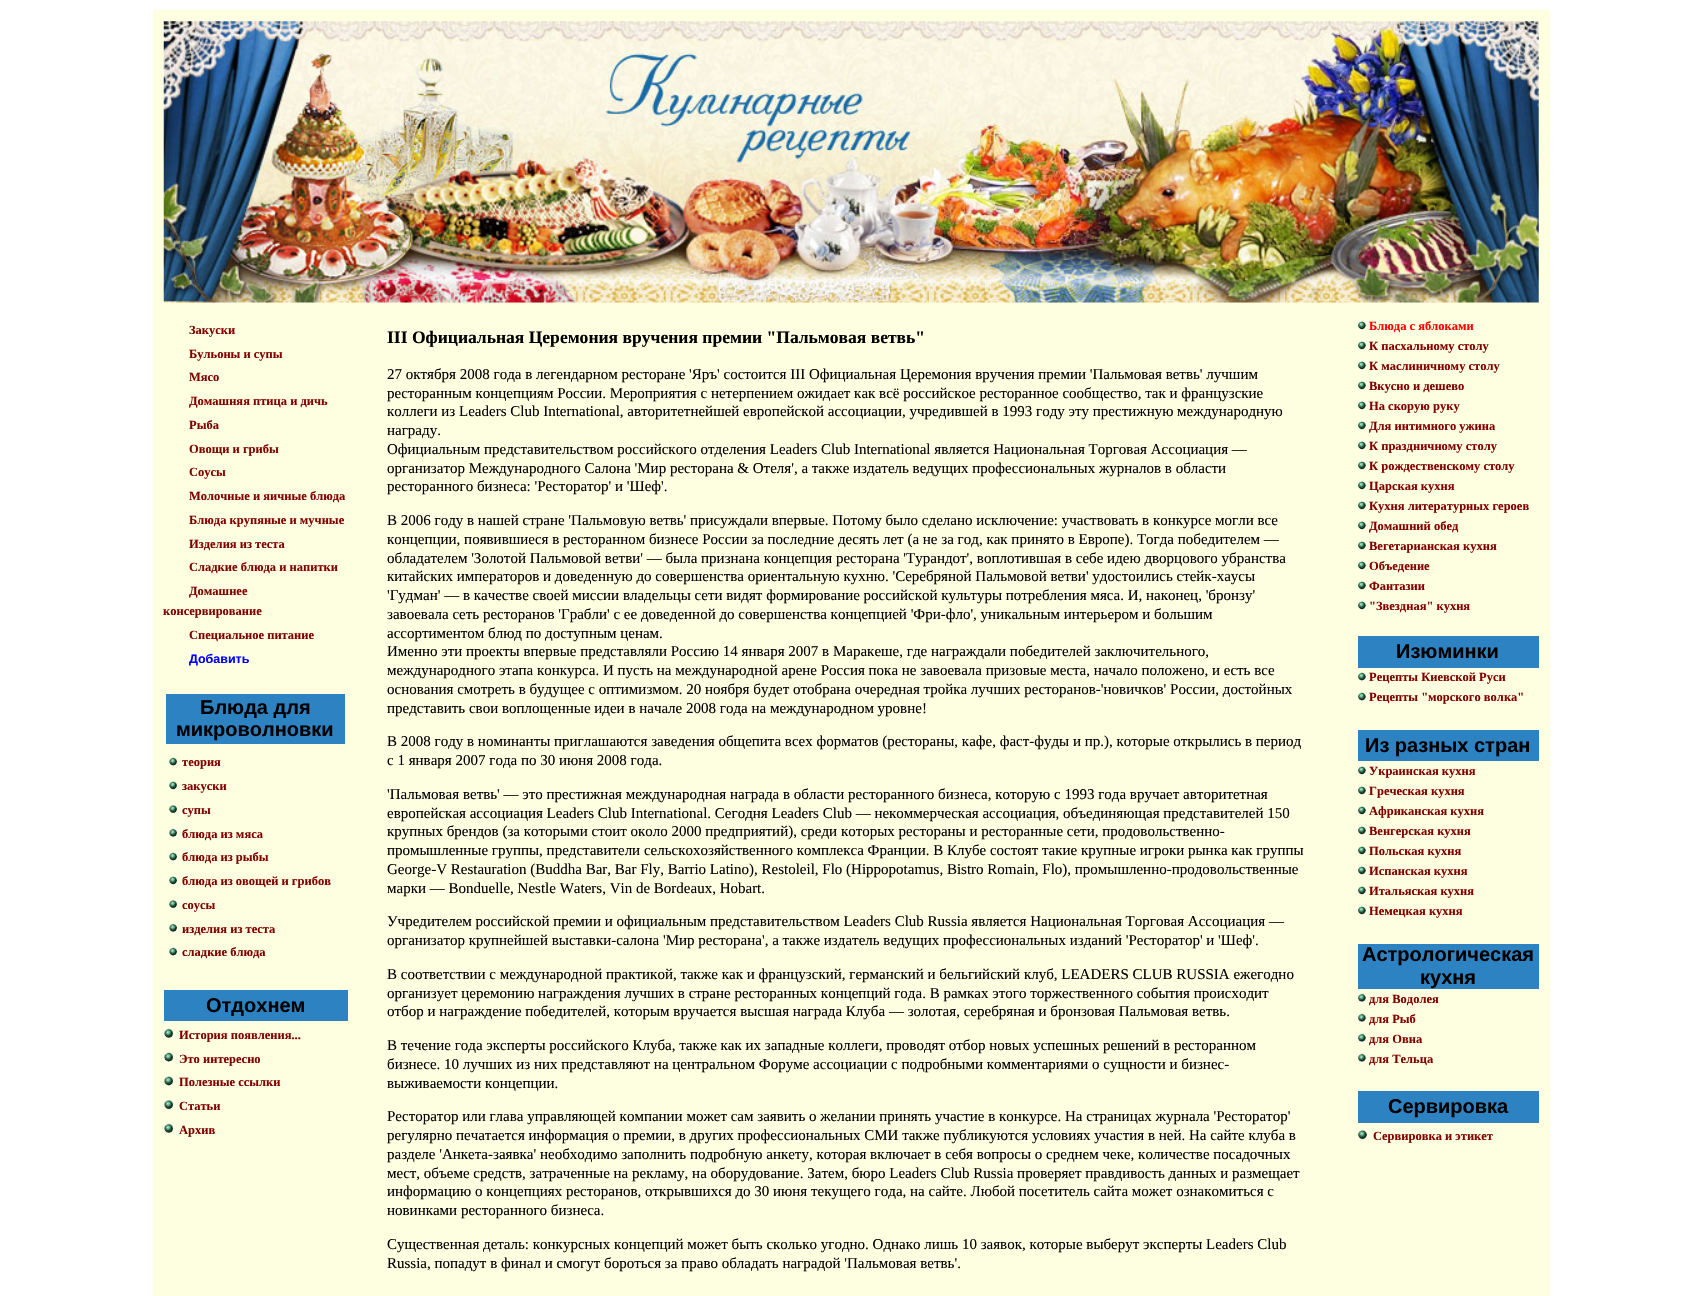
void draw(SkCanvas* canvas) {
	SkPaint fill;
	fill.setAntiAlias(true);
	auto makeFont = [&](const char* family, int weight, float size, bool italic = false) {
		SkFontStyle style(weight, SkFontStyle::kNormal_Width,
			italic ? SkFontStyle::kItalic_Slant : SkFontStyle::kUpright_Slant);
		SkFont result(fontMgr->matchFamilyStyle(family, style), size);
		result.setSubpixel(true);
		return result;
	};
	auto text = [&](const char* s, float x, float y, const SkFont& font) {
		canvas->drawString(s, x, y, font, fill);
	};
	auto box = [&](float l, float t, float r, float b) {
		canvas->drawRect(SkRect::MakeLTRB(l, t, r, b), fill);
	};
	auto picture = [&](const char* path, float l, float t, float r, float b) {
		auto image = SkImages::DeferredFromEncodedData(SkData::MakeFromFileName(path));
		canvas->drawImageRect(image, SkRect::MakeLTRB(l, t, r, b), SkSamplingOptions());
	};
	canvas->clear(0xFFFFFFFF);
	fill.setColor(0xFFFEFFE1);
	box(153, 10, 1550, 1296);
	picture("image0.png", 163, 21, 1539, 303);
	fill.setColor(0xFF2D83C2);
	box(166, 694, 345, 744);
	picture("image1.png", 169, 757, 177, 766);
	picture("image2.png", 169, 781, 177, 790);
	picture("image3.png", 169, 805, 177, 813);
	picture("image4.png", 168, 828, 177, 837);
	picture("image1.png", 169, 852, 177, 861);
	picture("image2.png", 169, 876, 177, 885);
	picture("image3.png", 169, 900, 177, 908);
	picture("image4.png", 168, 923, 177, 932);
	picture("image1.png", 169, 947, 177, 956);
	box(164, 990, 348, 1021);
	picture("image5.png", 164, 1028, 173, 1038);
	picture("image6.png", 164, 1052, 173, 1062);
	picture("image7.png", 163, 1076, 173, 1086);
	picture("image8.png", 163, 1100, 173, 1110);
	picture("image5.png", 164, 1123, 173, 1133);
	picture("image9.png", 1358, 321, 1366, 330);
	picture("image9.png", 1358, 341, 1366, 350);
	picture("image9.png", 1358, 361, 1366, 370);
	picture("image9.png", 1358, 381, 1366, 390);
	picture("image9.png", 1358, 401, 1366, 410);
	picture("image9.png", 1358, 421, 1366, 430);
	picture("image9.png", 1358, 441, 1366, 450);
	picture("image9.png", 1358, 461, 1366, 470);
	picture("image9.png", 1358, 481, 1366, 490);
	picture("image9.png", 1358, 501, 1366, 510);
	picture("image9.png", 1358, 521, 1366, 530);
	picture("image9.png", 1358, 541, 1366, 550);
	picture("image9.png", 1358, 561, 1366, 570);
	picture("image9.png", 1358, 581, 1366, 590);
	picture("image9.png", 1358, 601, 1366, 610);
	box(1358, 636, 1539, 668);
	picture("image10.png", 1357, 672, 1366, 681);
	picture("image10.png", 1357, 692, 1366, 701);
	box(1358, 730, 1539, 761);
	picture("image9.png", 1358, 766, 1366, 775);
	picture("image9.png", 1358, 786, 1366, 795);
	picture("image9.png", 1358, 806, 1366, 815);
	picture("image9.png", 1358, 826, 1366, 835);
	picture("image9.png", 1358, 846, 1366, 855);
	picture("image9.png", 1358, 866, 1366, 875);
	picture("image9.png", 1358, 886, 1366, 895);
	picture("image11.png", 1358, 906, 1366, 915);
	box(1358, 944, 1539, 989);
	picture("image12.png", 1357, 993, 1366, 1002);
	picture("image12.png", 1357, 1013, 1366, 1022);
	picture("image12.png", 1357, 1033, 1366, 1042);
	picture("image12.png", 1357, 1053, 1366, 1062);
	box(1358, 1091, 1539, 1123);
	picture("image13.png", 1357, 1130, 1367, 1140);
	auto font1 = makeFont("Liberation Serif", 700, 12.5f);
	fill.setColor(0xFF800000);
	text("Закуски", 189, 334, font1);
	text("Бульоны и супы", 189, 358, font1);
	text("Мясо", 189, 381, font1);
	text("Домашняя птица и дичь", 189, 405, font1);
	text("Рыба", 189, 429, font1);
	text("Овощи и грибы", 189, 453, font1);
	text("Соусы", 189, 476, font1);
	text("Молочные и яичные блюда", 189, 500, font1);
	text("Блюда крупяные и мучные", 189, 524, font1);
	text("Изделия из теста", 189, 548, font1);
	text("Сладкие блюда и напитки", 189, 571, font1);
	text("Домашнее", 189, 595, font1);
	text("консервирование", 163, 615, font1);
	text("Специальное питание", 189, 639, font1);
	auto font2 = makeFont("Liberation Sans", 700, 12.5f);
	fill.setColor(0xFF0000FF);
	text("Добавить", 189, 663, font2);
	auto font3 = makeFont("Liberation Sans", 700, 20);
	fill.setColor(0xFF000000);
	text("Блюда для", 200, 714, font3);
	text("микроволновки", 176, 736, font3);
	fill.setColor(0xFF800000);
	text("теория", 182, 766, font1);
	text("закуски", 182, 790, font1);
	text("супы", 182, 814, font1);
	text("блюда из мяса", 182, 838, font1);
	text("блюда из рыбы", 182, 861, font1);
	text("блюда из овощей и грибов", 182, 885, font1);
	text("соусы", 182, 909, font1);
	text("изделия из теста", 182, 933, font1);
	text("сладкие блюда", 182, 956, font1);
	fill.setColor(0xFF000000);
	text("Отдохнем", 206, 1012, font3);
	fill.setColor(0xFF800000);
	text("История появления...", 179, 1039, font1);
	text("Это интересно", 179, 1063, font1);
	text("Полезные ссылки", 179, 1086, font1);
	text("Статьи", 179, 1110, font1);
	text("Архив", 179, 1134, font1);
	auto font4 = makeFont("Liberation Serif", 700, 17.55f);
	fill.setColor(0xFF000000);
	text("III Официальная Церемония вручения премии \"Пальмовая ветвь\"", 387, 343, font4);
	auto font5 = makeFont("Liberation Serif", 400, 15);
	text("27 октября 2008 года в легендарном ресторане 'Яръ' состоится III Официальная Церемония вручения премии 'Пальмовая ветвь' лучшим", 387, 379, font5);
	text("ресторанным концепциям России. Мероприятия с нетерпением ожидает как всё российское ресторанное сообщество, так и французские", 387, 398, font5);
	text("коллеги из Leaders Club International, авторитетнейшей европейской ассоциации, учредившей в 1993 году эту престижную международную", 387, 416, font5);
	text("награду.", 387, 435, font5);
	text("Официальным представительством российского отделения Leaders Club International является Национальная Торговая Ассоциация —", 387, 454, font5);
	text("организатор Международного Салона 'Мир ресторана & Отеля', а также издатель ведущих профессиональных журналов в области", 387, 473, font5);
	text("ресторанного бизнеса: 'Ресторатор' и 'Шеф'.", 387, 491, font5);
	text("В 2006 году в нашей стране 'Пальмовую ветвь' присуждали впервые. Потому было сделано исключение: участвовать в конкурсе могли все", 387, 525, font5);
	text("концепции, появившиеся в ресторанном бизнесе России за последние десять лет (а не за год, как принято в Европе). Тогда победителем —", 387, 544, font5);
	text("обладателем 'Золотой Пальмовой ветви' — была признана концепция ресторана 'Турандот', воплотившая в себе идею дворцового убранства", 387, 563, font5);
	text("китайских императоров и доведенную до совершенства ориентальную кухню. 'Серебряной Пальмовой ветви' удостоились стейк-хаусы", 387, 581, font5);
	text("'Гудман' — в качестве своей миссии владельцы сети видят формирование российской культуры потребления мяса. И, наконец, 'бронзу'", 387, 600, font5);
	text("завоевала сеть ресторанов 'Грабли' с ее доведенной до совершенства концепцией 'Фри-фло', уникальным интерьером и большим", 387, 619, font5);
	text("ассортиментом блюд по доступным ценам.", 387, 638, font5);
	text("Именно эти проекты впервые представляли Россию 14 января 2007 в Маракеше, где награждали победителей заключительного,", 387, 656, font5);
	text("международного этапа конкурса. И пусть на международной арене Россия пока не завоевала призовые места, начало положено, и есть все", 387, 675, font5);
	text("основания смотреть в будущее с оптимизмом. 20 ноября будет отобрана очередная тройка лучших ресторанов-'новичков' России, достойных", 387, 694, font5);
	text("представить свои воплощенные идеи в начале 2008 года на международном уровне!", 387, 713, font5);
	text("В 2008 году в номинанты приглашаются заведения общепита всех форматов (рестораны, кафе, фаст-фуды и пр.), которые открылись в период", 387, 746, font5);
	text("с 1 января 2007 года по 30 июня 2008 года.", 387, 765, font5);
	text("'Пальмовая ветвь' — это престижная международная награда в области ресторанного бизнеса, которую с 1993 года вручает авторитетная", 387, 799, font5);
	text("европейская ассоциация Leaders Club International. Сегодня Leaders Club — некоммерческая ассоциация, объединяющая представителей 150", 387, 818, font5);
	text("крупных брендов (за которыми стоит около 2000 предприятий), среди которых рестораны и ресторанные сети, продовольственно-", 387, 836, font5);
	text("промышленные группы, представители сельскохозяйственного комплекса Франции. В Клубе состоят такие крупные игроки рынка как группы", 387, 855, font5);
	text("George-V Restauration (Buddha Bar, Bar Fly, Barrio Latino), Restoleil, Flo (Hippopotamus, Bistro Romain, Flo), промышленно-продовольственные", 387, 874, font5);
	text("марки — Bоnduelle, Nestle Waters, Vin de Bordeaux, Hobart.", 387, 893, font5);
	text("Учредителем российской премии и официальным представительством Leaders Club Russia является Национальная Торговая Ассоциация —", 387, 926, font5);
	text("организатор крупнейшей выставки-салона 'Мир ресторана', а также издатель ведущих профессиональных изданий 'Ресторатор' и 'Шеф'.", 387, 945, font5);
	text("В соответствии с международной практикой, также как и французский, германский и бельгийский клуб, LEADERS CLUB RUSSIA ежегодно", 387, 979, font5);
	text("организует церемонию награждения лучших в стране ресторанных концепций года. В рамках этого торжественного события происходит", 387, 998, font5);
	text("отбор и награждение победителей, которым вручается высшая награда Клуба — золотая, серебряная и бронзовая Пальмовая ветвь.", 387, 1016, font5);
	text("В течение года эксперты российского Клуба, также как их западные коллеги, проводят отбор новых успешных решений в ресторанном", 387, 1050, font5);
	text("бизнесе. 10 лучших из них представляют на центральном Форуме ассоциации с подробными комментариями о сущности и бизнес-", 387, 1069, font5);
	text("выживаемости концепции.", 387, 1088, font5);
	text("Ресторатор или глава управляющей компании может сам заявить о желании принять участие в конкурсе. На страницах журнала 'Ресторатор'", 387, 1121, font5);
	text("регулярно печатается информация о премии, в других профессиональных СМИ также публикуются условиях участия в ней. На сайте клуба в", 387, 1140, font5);
	text("разделе 'Анкета-заявка' необходимо заполнить подробную анкету, которая включает в себя вопросы о среднем чеке, количестве посадочных", 387, 1159, font5);
	text("мест, объеме средств, затраченные на рекламу, на оборудование. Затем, бюро Leaders Club Russia проверяет правдивость данных и размещает", 387, 1178, font5);
	text("информацию о концепциях ресторанов, открывшихся до 30 июня текущего года, на сайте. Любой посетитель сайта может ознакомиться с", 387, 1196, font5);
	text("новинками ресторанного бизнеса.", 387, 1215, font5);
	text("Существенная деталь: конкурсных концепций может быть сколько угодно. Однако лишь 10 заявок, которые выберут эксперты Leaders Club", 387, 1249, font5);
	text("Russia, попадут в финал и смогут бороться за право обладать наградой 'Пальмовая ветвь'.", 387, 1268, font5);
	fill.setColor(0xFFFF0000);
	text("Блюда с яблоками", 1369, 330, font1);
	fill.setColor(0xFF800000);
	text("К пасхальному столу", 1369, 350, font1);
	text("К маслиничному столу", 1369, 370, font1);
	text("Вкусно и дешево", 1369, 390, font1);
	text("На скорую руку", 1369, 410, font1);
	text("Для интимного ужина", 1369, 430, font1);
	text("К праздничному столу", 1369, 450, font1);
	text("К рождественскому столу", 1369, 470, font1);
	text("Царская кухня", 1369, 490, font1);
	text("Кухня литературных героев", 1369, 510, font1);
	text("Домашний обед", 1369, 530, font1);
	text("Вегетарианская кухня", 1369, 550, font1);
	text("Объедение", 1369, 570, font1);
	text("Фантазии", 1369, 590, font1);
	text("\"Звездная\" кухня", 1369, 610, font1);
	fill.setColor(0xFF000000);
	text("Изюминки", 1396, 658, font3);
	fill.setColor(0xFF800000);
	text("Рецепты Киевской Руси", 1369, 681, font1);
	text("Рецепты \"морского волка\"", 1369, 701, font1);
	fill.setColor(0xFF000000);
	text("Из разных стран", 1365, 752, font3);
	fill.setColor(0xFF800000);
	text("Украинская кухня", 1369, 775, font1);
	text("Греческая кухня", 1369, 795, font1);
	text("Африканская кухня", 1369, 815, font1);
	text("Венгерская кухня", 1369, 835, font1);
	text("Польская кухня", 1369, 855, font1);
	text("Испанская кухня", 1369, 875, font1);
	text("Итальяская кухня", 1369, 895, font1);
	text("Немецкая кухня", 1369, 915, font1);
	fill.setColor(0xFF000000);
	text("Астрологическая", 1362, 961, font3);
	text("кухня", 1420, 984, font3);
	fill.setColor(0xFF800000);
	text("для Водолея", 1369, 1003, font1);
	text("для Рыб", 1369, 1023, font1);
	text("для Овна", 1369, 1043, font1);
	text("для Тельца", 1369, 1063, font1);
	fill.setColor(0xFF000000);
	text("Сервировка", 1388, 1113, font3);
	fill.setColor(0xFF800000);
	text("Сервировка и этикет", 1373, 1140, font1);
}
